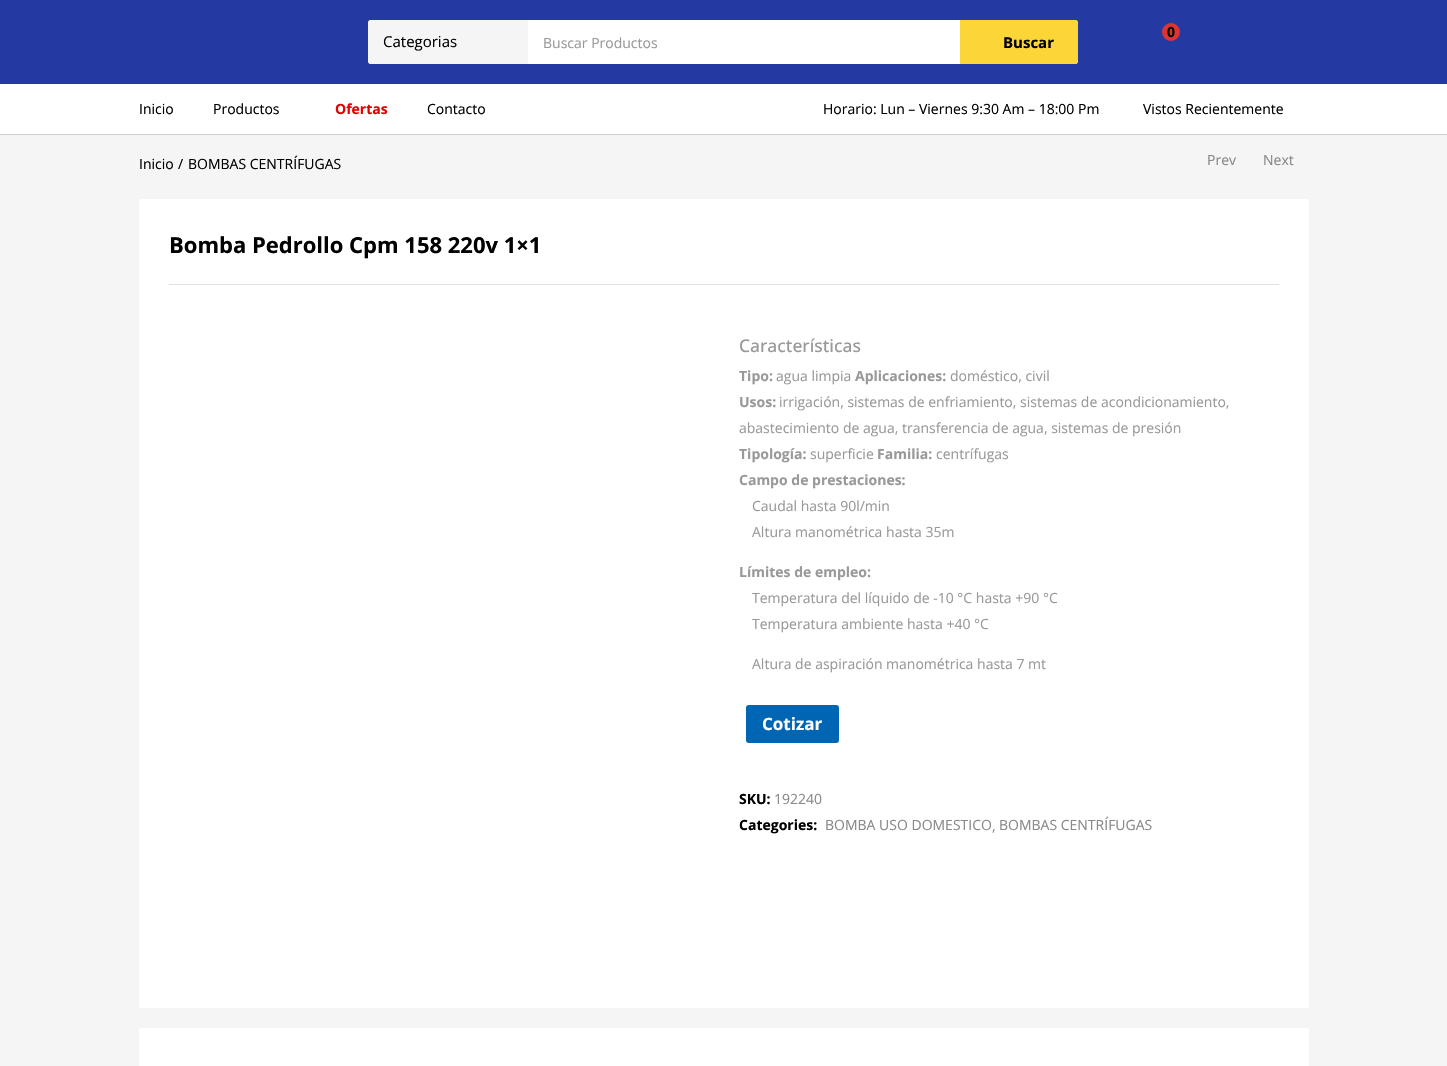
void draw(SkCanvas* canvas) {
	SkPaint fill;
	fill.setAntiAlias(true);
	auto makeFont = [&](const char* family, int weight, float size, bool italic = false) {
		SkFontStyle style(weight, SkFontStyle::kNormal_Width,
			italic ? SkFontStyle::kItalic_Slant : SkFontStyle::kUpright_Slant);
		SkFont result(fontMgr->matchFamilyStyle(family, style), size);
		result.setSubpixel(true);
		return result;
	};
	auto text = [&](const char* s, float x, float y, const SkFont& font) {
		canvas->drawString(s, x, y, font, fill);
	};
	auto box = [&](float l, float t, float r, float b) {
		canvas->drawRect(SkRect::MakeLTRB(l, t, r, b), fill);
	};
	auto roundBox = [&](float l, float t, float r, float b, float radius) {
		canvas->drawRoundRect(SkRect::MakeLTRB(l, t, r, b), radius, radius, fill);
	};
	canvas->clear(0xFFF5F5F5);
	fill.setColor(0xFFFFFFFF);
	box(0, 84, 1447, 134);
	fill.setColor(0xFF243AA2);
	box(0, 0, 1447, 84);
	fill.setColor(0xFFDD3333);
	canvas->drawCircle(1171, 32, 9, fill);
	fill.setColor(0xFFFFFFFF);
	roundBox(368, 20, 1078, 64, 3);
	fill.setColor(0xFFF5F5F5);
	canvas->drawPath(SkPathBuilder().moveTo(371, 20).lineTo(528, 20).lineTo(528, 64).lineTo(371, 64).cubicTo(369.5f, 64, 368, 62.5f, 368, 61).lineTo(368, 23).cubicTo(368, 21.5f, 369.5f, 20, 371, 20).close().detach(), fill);
	fill.setColor(0xFFFCD537);
	canvas->drawPath(SkPathBuilder().moveTo(960, 20).lineTo(1075, 20).cubicTo(1076.5f, 20, 1078, 21.5f, 1078, 23).lineTo(1078, 61).cubicTo(1078, 62.5f, 1076.5f, 64, 1075, 64).lineTo(960, 64).close().detach(), fill);
	fill.setColor(0xFFD0D0D0);
	box(0, 134, 1447, 135);
	fill.setColor(0xFFFFFFFF);
	box(139, 199, 1309, 1008);
	fill.setColor(0xFFE0E0E0);
	box(169, 284, 1279, 285);
	fill.setColor(0xFF0066B4);
	roundBox(746, 705, 839, 743, 3);
	fill.setColor(0xFFFFFFFF);
	box(139, 1028, 1309, 1066);
	auto font1 = makeFont("Open Sans", 700, 14);
	fill.setColor(0xFF000000);
	text("0", 1167, 37, font1);
	auto font2 = makeFont("Open Sans", 400, 15);
	text("Categorias", 383, 47, font2);
	auto font3 = makeFont("Open Sans", 400, 14);
	fill.setColor(0xFF999999);
	text("Buscar Productos", 543, 48, font3);
	auto font4 = makeFont("Open Sans", 700, 15);
	fill.setColor(0xFF000000);
	text("Buscar", 1003, 48, font4);
	text("Inicio", 139, 114, font3);
	text("Productos", 213, 114, font3);
	fill.setColor(0xFFE20202);
	text("Ofertas", 335, 114, font1);
	fill.setColor(0xFF000000);
	text("Contacto", 427, 114, font3);
	text("Horario: Lun – Viernes 9:30 Am – 18:00 Pm", 823, 114, font3);
	text("Vistos Recientemente", 1143, 114, font3);
	text("Inicio", 139, 169, font3);
	text("/", 178, 169, font3);
	text("BOMBAS CENTRÍFUGAS", 188, 169, font3);
	fill.setColor(0xFF888888);
	text("Prev", 1207, 165, font3);
	text("Next", 1263, 165, font3);
	auto font5 = makeFont("Open Sans", 700, 22);
	fill.setColor(0xFF000000);
	text("Bomba Pedrollo Cpm 158 220v 1×1", 169, 253, font5);
	auto font6 = makeFont("Open Sans", 500, 17.5f);
	fill.setColor(0xFF999999);
	text("Características", 739, 352, font6);
	text("Tipo:", 739, 381, font1);
	text("agua limpia", 776, 381, font3);
	text("Aplicaciones:", 855, 381, font1);
	text("doméstico, civil", 950, 381, font3);
	text("Usos:", 739, 407, font1);
	text("irrigación, sistemas de enfriamiento, sistemas de acondicionamiento,", 779, 407, font3);
	text("abastecimiento de agua, transferencia de agua, sistemas de presión", 739, 433, font3);
	text("Tipología:", 739, 459, font1);
	text("superficie", 810, 459, font3);
	text("Familia:", 877, 459, font1);
	text("centrífugas", 936, 459, font3);
	text("Campo de prestaciones:", 739, 485, font1);
	text("Caudal hasta 90l/min", 752, 511, font3);
	text("Altura manométrica hasta 35m", 752, 537, font3);
	text("Límites de empleo:", 739, 577, font1);
	text("Temperatura del líquido de -10 °C hasta +90 °C", 752, 603, font3);
	text("Temperatura ambiente hasta +40 °C", 752, 629, font3);
	text("Altura de aspiración manométrica hasta 7 mt", 752, 669, font3);
	auto font7 = makeFont("Open Sans", 700, 17);
	fill.setColor(0xFFFFFFFF);
	text("Cotizar", 762, 730, font7);
	fill.setColor(0xFF000000);
	text("SKU:", 739, 804, font1);
	fill.setColor(0xFF888888);
	text("192240", 774, 804, font3);
	fill.setColor(0xFF000000);
	text("Categories:", 739, 830, font1);
	fill.setColor(0xFF888888);
	text("BOMBA USO DOMESTICO", 825, 830, font3);
	text(",", 992, 831, font3);
	text("BOMBAS CENTRÍFUGAS", 999, 830, font3);
}
